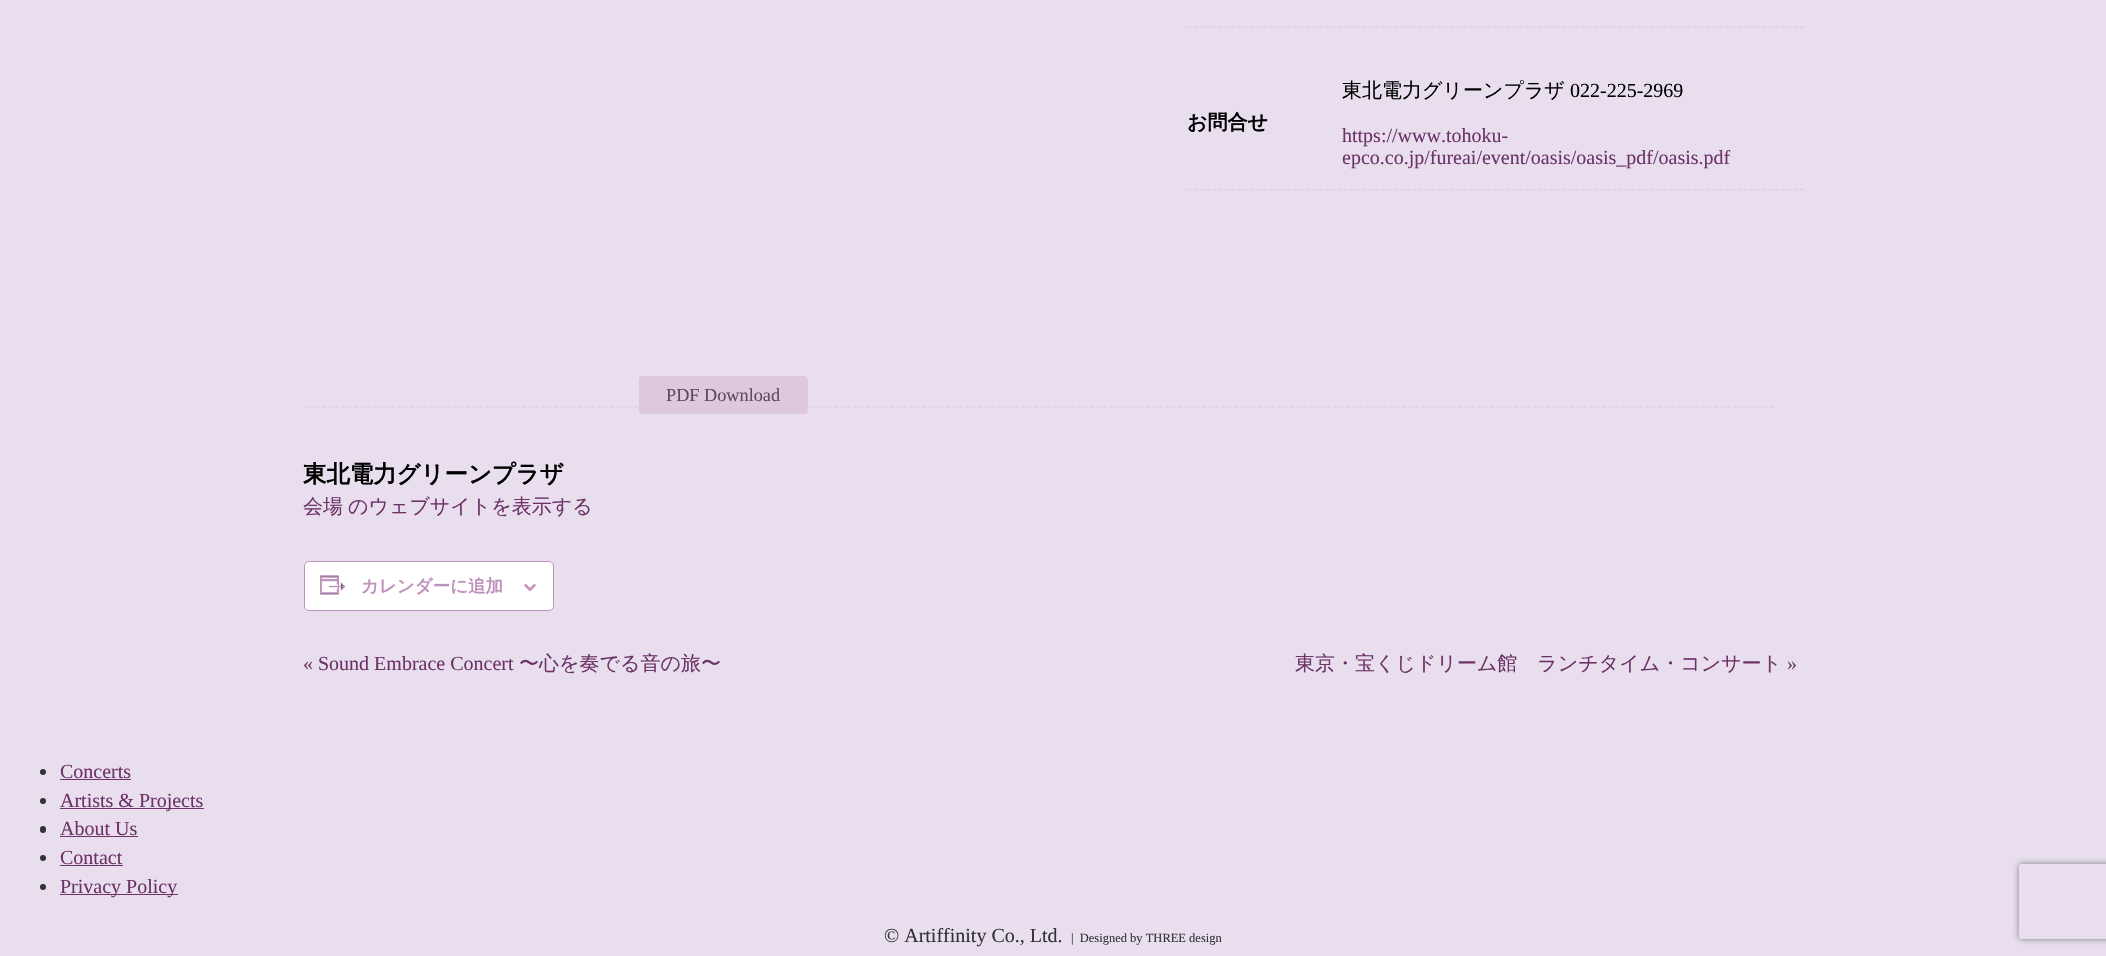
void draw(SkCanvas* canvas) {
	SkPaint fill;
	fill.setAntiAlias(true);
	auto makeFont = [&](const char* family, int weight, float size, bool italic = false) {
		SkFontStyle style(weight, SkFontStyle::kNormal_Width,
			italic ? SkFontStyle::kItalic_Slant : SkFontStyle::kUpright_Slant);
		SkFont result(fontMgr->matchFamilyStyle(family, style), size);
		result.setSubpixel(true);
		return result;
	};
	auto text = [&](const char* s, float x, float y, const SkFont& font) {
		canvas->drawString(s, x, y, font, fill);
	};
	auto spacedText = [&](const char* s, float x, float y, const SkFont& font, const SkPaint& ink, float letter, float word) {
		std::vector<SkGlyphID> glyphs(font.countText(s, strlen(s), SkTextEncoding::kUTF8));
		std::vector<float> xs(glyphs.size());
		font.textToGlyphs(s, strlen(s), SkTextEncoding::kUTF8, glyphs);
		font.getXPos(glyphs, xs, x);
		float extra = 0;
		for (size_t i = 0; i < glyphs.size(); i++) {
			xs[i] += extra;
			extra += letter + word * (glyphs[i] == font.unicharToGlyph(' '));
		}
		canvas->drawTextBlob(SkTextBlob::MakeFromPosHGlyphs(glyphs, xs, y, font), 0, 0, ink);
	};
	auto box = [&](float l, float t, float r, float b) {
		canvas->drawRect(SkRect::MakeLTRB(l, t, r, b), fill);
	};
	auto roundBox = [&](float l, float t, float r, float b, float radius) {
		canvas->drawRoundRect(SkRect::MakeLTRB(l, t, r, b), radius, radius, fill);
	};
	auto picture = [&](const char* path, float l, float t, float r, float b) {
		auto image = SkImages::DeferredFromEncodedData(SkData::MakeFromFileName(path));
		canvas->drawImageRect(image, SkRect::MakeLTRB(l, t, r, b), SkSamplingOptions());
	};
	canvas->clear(0xFFE8DEED);
	fill.setStyle(SkPaint::kStroke_Style);
	fill.setStrokeWidth(1.2f);
	fill.setColor(0xFFDEC8DE);
	fill.setPathEffect(SkDashPathEffect::Make({{3.75f, 2.5f}}, 0));
	canvas->drawPath(SkPathBuilder().moveTo(1187.5f, 27).lineTo(1804, 27).detach(), fill);
	fill.setPathEffect(nullptr);
	fill.setPathEffect(SkDashPathEffect::Make({{3.75f, 2.5f}}, 0));
	canvas->drawPath(SkPathBuilder().moveTo(1187.5f, 189.5f).lineTo(1804, 189.5f).detach(), fill);
	fill.setPathEffect(nullptr);
	fill.setPathEffect(SkDashPathEffect::Make({{3.75f, 2.49f}}, 0));
	canvas->drawPath(SkPathBuilder().moveTo(304, 407).lineTo(1774, 407).detach(), fill);
	fill.setPathEffect(nullptr);
	fill.setStyle(SkPaint::kFill_Style);
	roundBox(639, 376, 808, 414, 4);
	fill.setColor(0xFFFFFFFF);
	canvas->drawRoundRect(SkRect::MakeLTRB(304.5f, 561.5f, 553.5f, 610.5f), 4.5f, 4.5f, fill);
	fill.setStyle(SkPaint::kStroke_Style);
	fill.setStrokeWidth(1);
	fill.setColor(0xFFBE92BD);
	canvas->drawRoundRect(SkRect::MakeLTRB(304.5f, 561.5f, 553.5f, 610.5f), 4.5f, 4.5f, fill);
	picture("image0.png", 320, 575, 346, 595);
	picture("image1.png", 524, 584, 536, 591);
	fill.setStyle(SkPaint::kFill_Style);
	fill.setColor(0xFF333333);
	canvas->drawCircle(43, 772, 3, fill);
	fill.setColor(0xFF6D3368);
	box(60, 779, 131, 780);
	fill.setColor(0xFF333333);
	canvas->drawCircle(43, 801, 3, fill);
	fill.setColor(0xFF6D3368);
	box(60, 808, 204, 809);
	fill.setColor(0xFF333333);
	roundBox(40, 826, 46, 833, 3);
	fill.setColor(0xFF6D3368);
	box(60, 836, 138, 837);
	fill.setColor(0xFF333333);
	canvas->drawCircle(43, 858, 3, fill);
	fill.setColor(0xFF6D3368);
	box(60, 865, 123, 866);
	fill.setColor(0xFF333333);
	canvas->drawCircle(43, 887, 3, fill);
	fill.setColor(0xFF6D3368);
	box(60, 894, 178, 895);
	canvas->save();
	canvas->clipPath(SkPathBuilder(SkPathFillType::kEvenOdd).moveTo(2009, 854).lineTo(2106, 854).lineTo(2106, 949).lineTo(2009, 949).close().moveTo(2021.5f, 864).lineTo(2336.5f, 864).cubicTo(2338, 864, 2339, 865, 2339, 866.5f).lineTo(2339, 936.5f).cubicTo(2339, 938, 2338, 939, 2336.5f, 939).lineTo(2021.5f, 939).cubicTo(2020, 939, 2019, 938, 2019, 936.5f).lineTo(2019, 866.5f).cubicTo(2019, 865, 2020, 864, 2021.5f, 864).close().detach(), true);
	fill.setColor(0xFF808080);
	fill.setMaskFilter(SkMaskFilter::MakeBlur(kNormal_SkBlurStyle, 3));
	canvas->drawRoundRect(SkRect::MakeLTRB(2019, 864, 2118, 939), 2.5f, 2.5f, fill);
	fill.setMaskFilter(nullptr);
	canvas->restore();
	auto font1 = makeFont("WenQuanYi Zen Hei", 700, 20);
	fill.setColor(0xFF000000);
	text("お問合せ", 1187, 129, font1);
	auto font2 = makeFont("WenQuanYi Zen Hei", 500, 20);
	text("東北電力グリーンプラザ", 1342, 97, font2);
	auto font3 = makeFont("Liberation Serif", 400, 20);
	text("022-225-2969", 1570, 97, font3);
	fill.setColor(0xFF6D3368);
	text("https://www.tohoku-", 1342, 142, font3);
	text("epco.co.jp/fureai/event/oasis/oasis_pdf/oasis.pdf", 1342, 164, font3);
	auto font4 = makeFont("Liberation Serif", 400, 18.25f);
	fill.setColor(0xFF5F495E);
	text("PDF Download", 666, 401, font4);
	auto font5 = makeFont("WenQuanYi Zen Hei", 700, 23.4f);
	fill.setColor(0xFF000000);
	text("東北電力グリーンプラザ", 303, 482, font5);
	fill.setColor(0xFF6D3368);
	spacedText("会場 のウェブサイトを表示する", 303, 513, font2, fill, 0, -1);
	auto font6 = makeFont("WenQuanYi Zen Hei", 700, 17.5f);
	fill.setColor(0xFFBE92BD);
	text("カレンダーに追加", 361, 592, font6);
	fill.setColor(0xFF6D3368);
	text("« Sound Embrace Concert", 303, 670, font3);
	text("〜心を奏でる音の旅〜", 519, 670, font2);
	text("東京・宝くじドリーム館　ランチタイム・コンサート", 1295, 670, font2);
	text("»", 1787, 670, font3);
	text("Concerts", 60, 778, font3);
	text("Artists & Projects", 60, 807, font3);
	text("About Us", 60, 835, font3);
	text("Contact", 60, 864, font3);
	text("Privacy Policy", 60, 893, font3);
	fill.setColor(0xFF333333);
	text("© Artiffinity Co., Ltd.", 884, 942, font3);
	auto font7 = makeFont("Liberation Serif", 400, 12.5f);
	text("|  Designed by THREE design", 1071, 942, font7);
}
